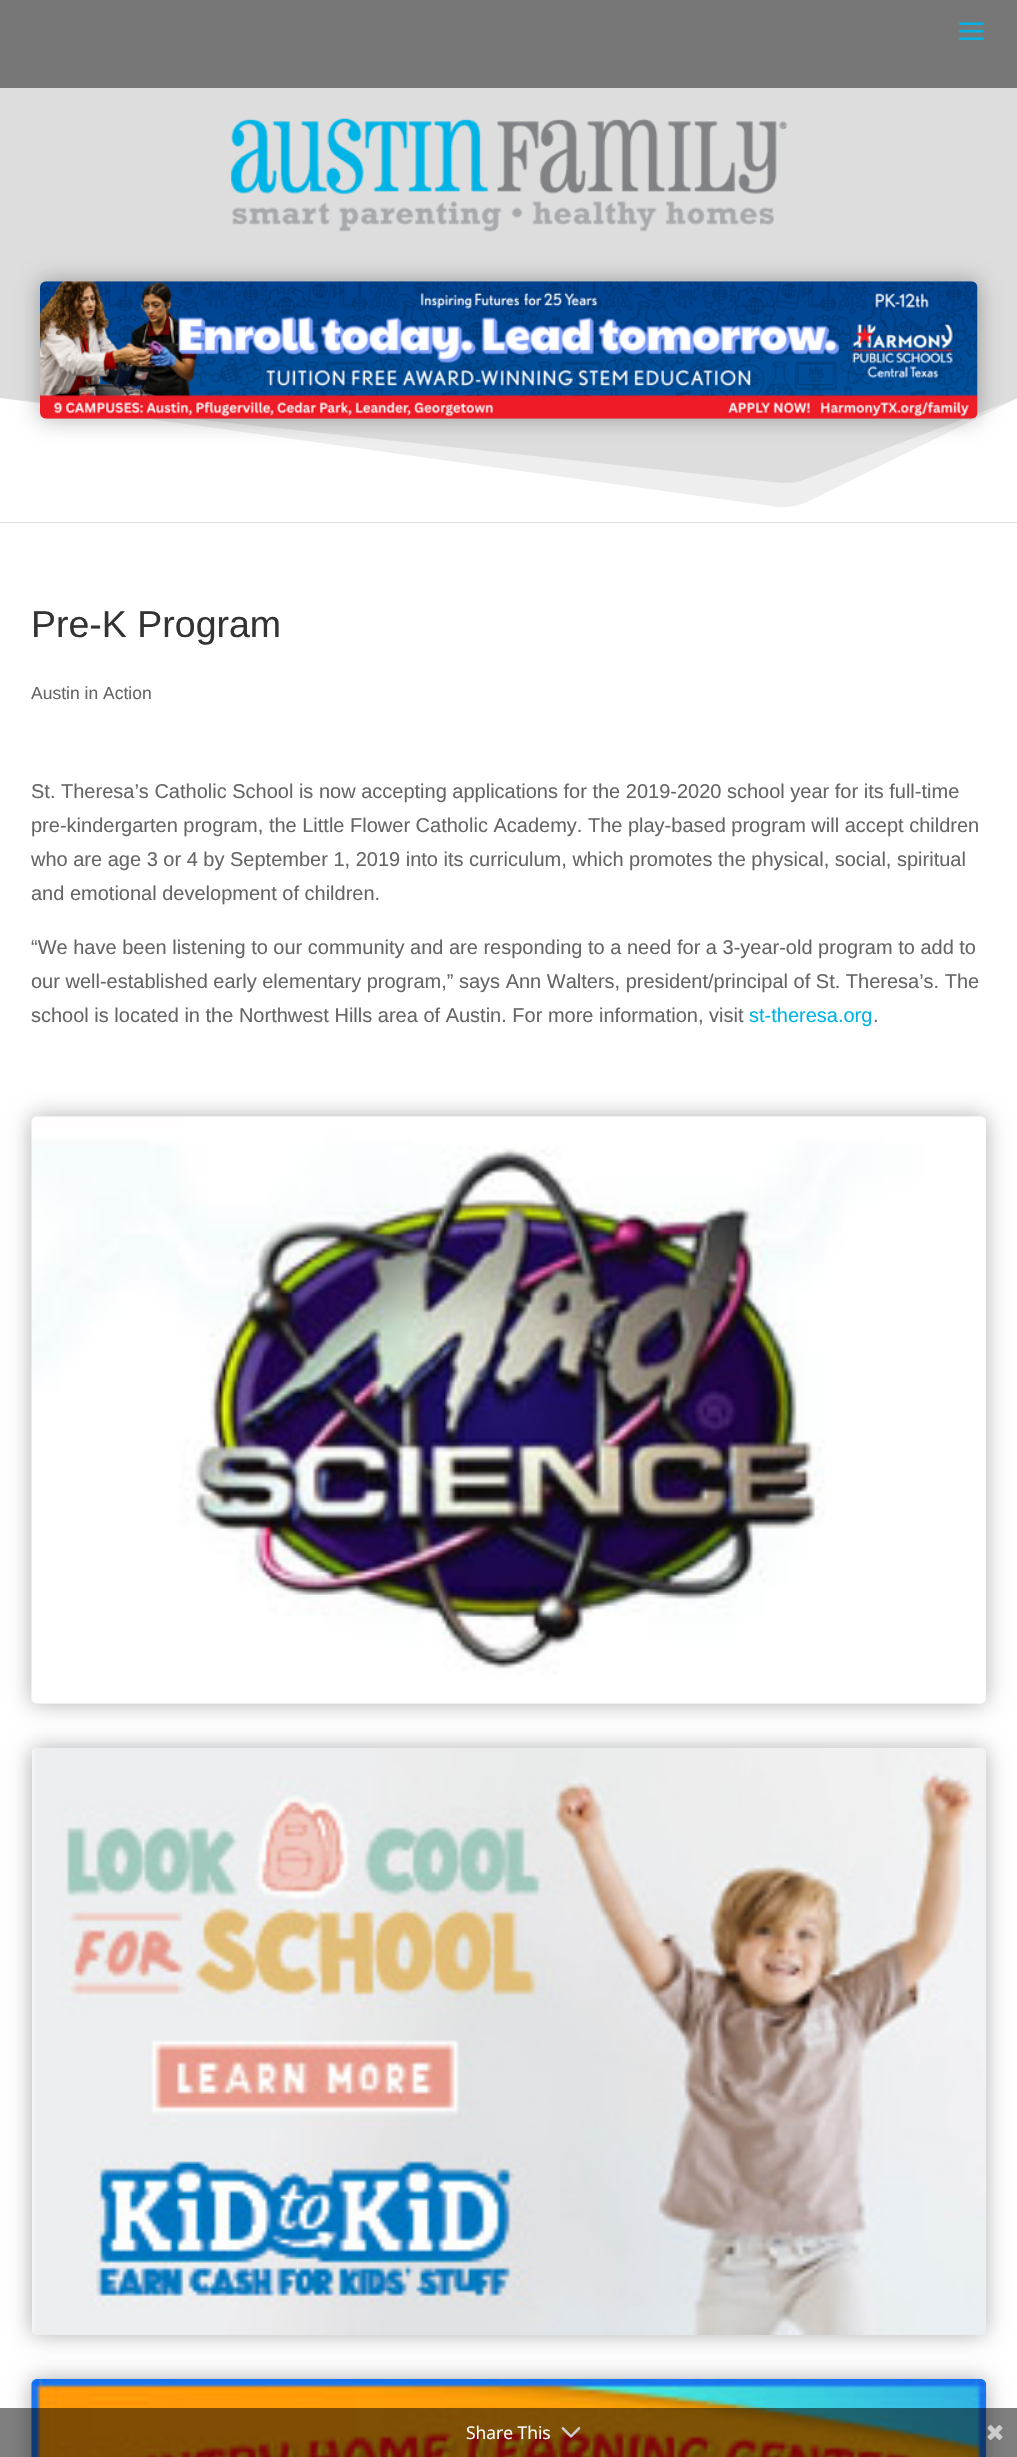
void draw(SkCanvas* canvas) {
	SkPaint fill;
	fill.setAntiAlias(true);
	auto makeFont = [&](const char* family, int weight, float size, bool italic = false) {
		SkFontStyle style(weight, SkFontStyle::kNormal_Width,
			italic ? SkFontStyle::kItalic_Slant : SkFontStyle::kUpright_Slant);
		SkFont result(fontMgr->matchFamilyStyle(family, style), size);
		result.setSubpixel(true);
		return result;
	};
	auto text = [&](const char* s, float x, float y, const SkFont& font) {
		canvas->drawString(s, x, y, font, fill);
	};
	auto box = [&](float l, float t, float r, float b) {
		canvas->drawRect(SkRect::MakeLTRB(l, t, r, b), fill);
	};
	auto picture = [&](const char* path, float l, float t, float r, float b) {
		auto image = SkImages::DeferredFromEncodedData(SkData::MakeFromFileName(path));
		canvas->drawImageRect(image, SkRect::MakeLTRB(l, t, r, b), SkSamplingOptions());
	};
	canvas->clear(0xFFFFFFFF);
	fill.setColor(0xFF777777);
	box(0, 0, 1017, 88);
	picture("image0.png", 958, 22, 984, 40);
	fill.setColor(0xFFDDDDDD);
	box(0, 88, 1017, 523);
	picture("image1.png", 231, 118, 788, 232);
	fill.setColor(0xFFEEEEEE);
	canvas->drawPath(SkPathBuilder().moveTo(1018, 398).lineTo(806, 479).cubicTo(798, 482, 790, 483, 782, 483).lineTo(0, 398).lineTo(0, 522).lineTo(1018, 522).close().detach(), fill);
	fill.setColor(0xFFFFFFFF);
	canvas->drawPath(SkPathBuilder().moveTo(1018, 398).lineTo(809, 501).cubicTo(799, 506, 789, 508, 778, 507).lineTo(0, 398).lineTo(0, 522).lineTo(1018, 522).close().detach(), fill);
	fill.setColor(0x4D000000);
	fill.setMaskFilter(SkMaskFilter::MakeBlur(kNormal_SkBlurStyle, 11));
	canvas->drawRoundRect(SkRect::MakeLTRB(40, 281, 978, 419), 6, 6, fill);
	fill.setMaskFilter(nullptr);
	picture("image2.png", 40, 281, 978, 419);
	fill.setMaskFilter(SkMaskFilter::MakeBlur(kNormal_SkBlurStyle, 11));
	canvas->drawRoundRect(SkRect::MakeLTRB(31, 1116, 986, 1704), 6, 6, fill);
	fill.setMaskFilter(nullptr);
	picture("image3.png", 31, 1116, 986, 1704);
	fill.setMaskFilter(SkMaskFilter::MakeBlur(kNormal_SkBlurStyle, 11));
	canvas->drawRoundRect(SkRect::MakeLTRB(31, 1748, 986, 2335), 6, 6, fill);
	fill.setMaskFilter(nullptr);
	picture("image4.png", 32, 1748, 986, 2335);
	fill.setMaskFilter(SkMaskFilter::MakeBlur(kNormal_SkBlurStyle, 11));
	canvas->drawRoundRect(SkRect::MakeLTRB(31, 2379, 986, 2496), 6, 6, fill);
	fill.setMaskFilter(nullptr);
	picture("image5.png", 31, 2378, 987, 2457);
	fill.setColor(0x80000000);
	box(0, 2408, 1017, 2457);
	picture("image6.png", 561, 2427, 581, 2438);
	picture("image7.png", 987, 2425, 1003, 2440);
	auto font1 = makeFont("Liberation Sans", 400, 37.5f);
	fill.setColor(0xFF333333);
	text("Pre-K Program", 31, 637, font1);
	auto font2 = makeFont("Liberation Sans", 400, 17.5f);
	fill.setColor(0xFF666666);
	text("Austin in Action", 31, 699, font2);
	auto font3 = makeFont("Liberation Sans", 400, 20);
	text("St. Theresa’s Catholic School is now accepting applications for the 2019-2020 school year for its full-time", 31, 798, font3);
	text("pre-kindergarten program, the Little Flower Catholic Academy. The play-based program will accept children", 31, 832, font3);
	text("who are age 3 or 4 by September 1, 2019 into its curriculum, which promotes the physical, social, spiritual", 31, 866, font3);
	text("and emotional development of children.", 31, 900, font3);
	text("“We have been listening to our community and are responding to a need for a 3-year-old program to add to", 31, 954, font3);
	text("our well-established early elementary program,” says Ann Walters, president/principal of St. Theresa’s. The", 31, 988, font3);
	text("school is located in the Northwest Hills area of Austin. For more information, visit", 31, 1022, font3);
	fill.setColor(0xFF00B3E7);
	text("st-theresa.org", 749, 1022, font3);
	fill.setColor(0xFF666666);
	text(".", 873, 1022, font3);
	auto font4 = makeFont("Open Sans", 400, 17.5f);
	fill.setColor(0xFFFFFFFF);
	text("Share This", 466, 2439, font4);
}
